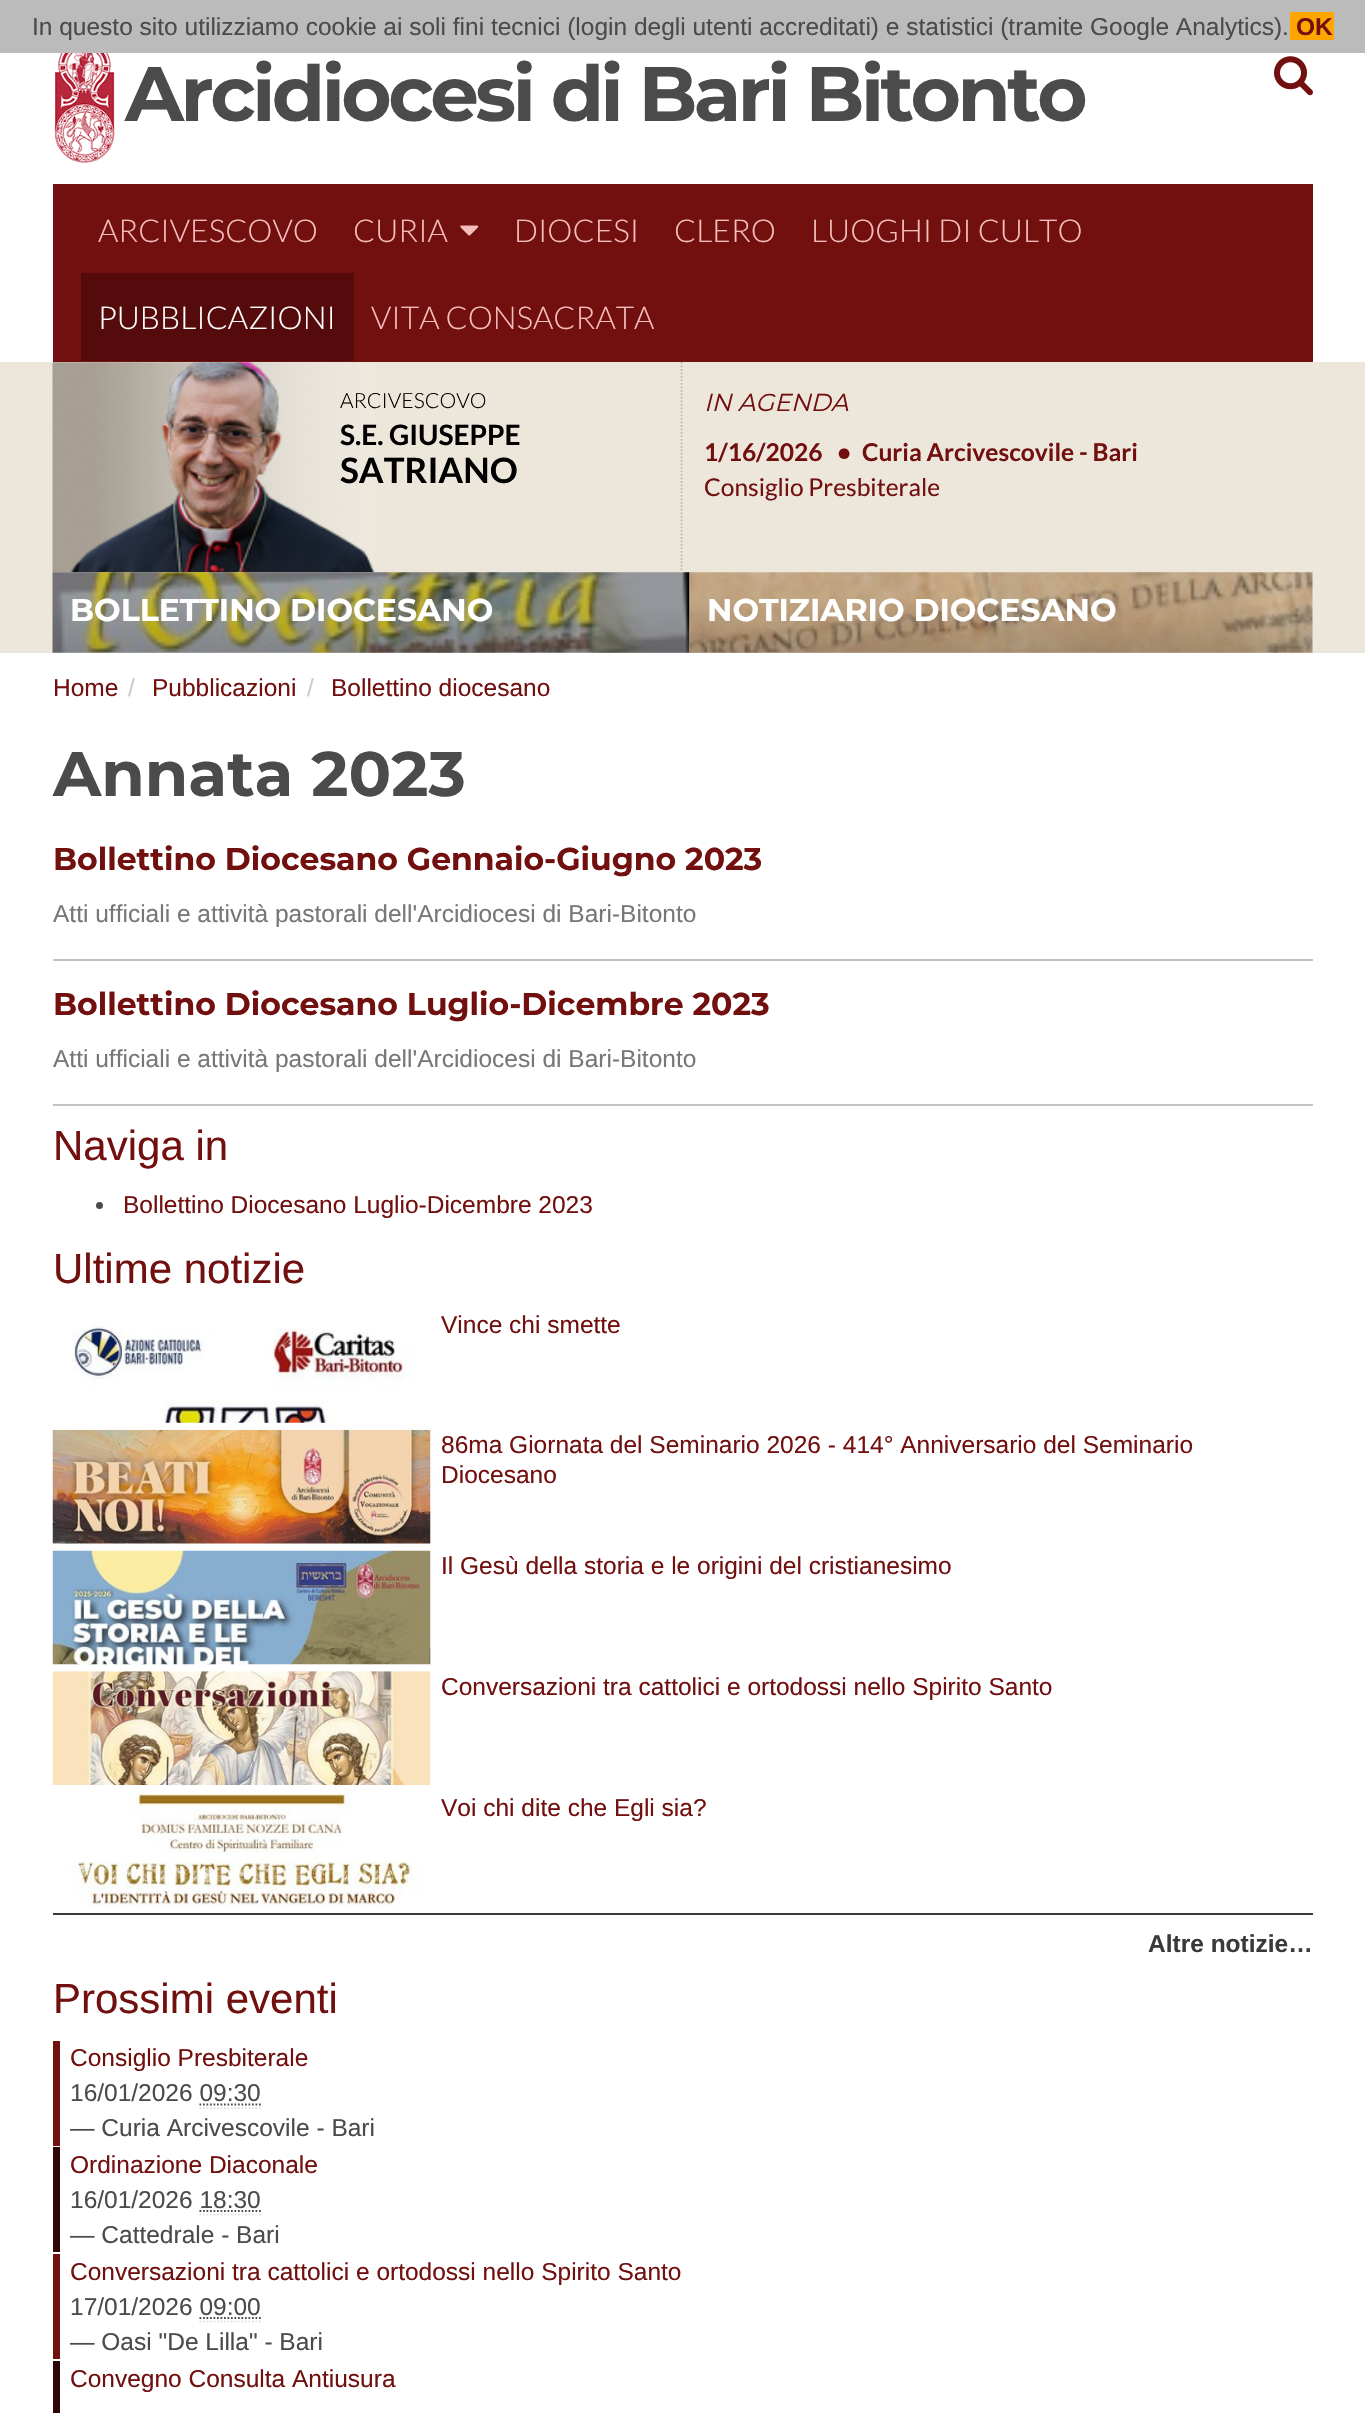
void draw(SkCanvas* canvas) {
	SkPaint fill;
	fill.setAntiAlias(true);
	auto makeFont = [&](const char* family, int weight, float size, bool italic = false) {
		SkFontStyle style(weight, SkFontStyle::kNormal_Width,
			italic ? SkFontStyle::kItalic_Slant : SkFontStyle::kUpright_Slant);
		SkFont result(fontMgr->matchFamilyStyle(family, style), size);
		result.setSubpixel(true);
		return result;
	};
	auto text = [&](const char* s, float x, float y, const SkFont& font) {
		canvas->drawString(s, x, y, font, fill);
	};
	auto spacedText = [&](const char* s, float x, float y, const SkFont& font, const SkPaint& ink, float letter, float word) {
		std::vector<SkGlyphID> glyphs(font.countText(s, strlen(s), SkTextEncoding::kUTF8));
		std::vector<float> xs(glyphs.size());
		font.textToGlyphs(s, strlen(s), SkTextEncoding::kUTF8, glyphs);
		font.getXPos(glyphs, xs, x);
		float extra = 0;
		for (size_t i = 0; i < glyphs.size(); i++) {
			xs[i] += extra;
			extra += letter + word * (glyphs[i] == font.unicharToGlyph(' '));
		}
		canvas->drawTextBlob(SkTextBlob::MakeFromPosHGlyphs(glyphs, xs, y, font), 0, 0, ink);
	};
	auto box = [&](float l, float t, float r, float b) {
		canvas->drawRect(SkRect::MakeLTRB(l, t, r, b), fill);
	};
	auto picture = [&](const char* path, float l, float t, float r, float b) {
		auto image = SkImages::DeferredFromEncodedData(SkData::MakeFromFileName(path));
		canvas->drawImageRect(image, SkRect::MakeLTRB(l, t, r, b), SkSamplingOptions());
	};
	canvas->clear(0xFFFFFFFF);
	fill.setColor(0xFFBBBBBB);
	box(0, 0, 1365, 53);
	fill.setColor(0xFFFFA500);
	box(1290, 12, 1334, 40);
	picture("image0.png", 54, 53, 115, 163);
	picture("image1.png", 1274, 56, 1313, 96);
	fill.setColor(0xFF720F0F);
	box(53, 184, 1313, 362);
	picture("image2.png", 460, 225, 479, 236);
	fill.setColor(0xFF550B0B);
	box(81, 273, 354, 361);
	fill.setColor(0xFFEDE6DA);
	box(0, 362, 1365, 653);
	fill.setStyle(SkPaint::kStroke_Style);
	fill.setStrokeWidth(1.8f);
	fill.setColor(0xFFCCB895);
	fill.setPathEffect(SkDashPathEffect::Make({{1.75f, 1.75f}}, 0));
	canvas->drawPath(SkPathBuilder().moveTo(681.5f, 362).lineTo(681.5f, 572).detach(), fill);
	fill.setPathEffect(nullptr);
	picture("image3.png", 52, 362, 375, 573);
	picture("image4.png", 52, 572, 690, 653);
	picture("image5.png", 689, 572, 1313, 653);
	fill.setStyle(SkPaint::kFill_Style);
	fill.setColor(0xFFC2C2C2);
	box(53, 959, 1313, 961);
	box(53, 1104, 1313, 1106);
	fill.setColor(0xFF4B4B4B);
	canvas->drawCircle(99.5f, 1205.5f, 3.5f, fill);
	picture("image6.png", 72, 1322, 416, 1423);
	picture("image7.png", 52, 1429, 431, 1544);
	picture("image8.png", 52, 1550, 431, 1665);
	picture("image9.png", 52, 1671, 431, 1785);
	picture("image10.png", 70, 1792, 422, 1906);
	fill.setColor(0xFF3A3A3A);
	box(53, 1913, 1313, 1915);
	fill.setColor(0xFF720F0F);
	box(53, 2041, 60, 2146);
	fill.setStyle(SkPaint::kStroke_Style);
	fill.setColor(0xFFE4E4E4);
	fill.setPathEffect(SkDashPathEffect::Make({{1.75f, 1.75f}}, 0));
	canvas->drawPath(SkPathBuilder().moveTo(199.5f, 2108).lineTo(261, 2108).detach(), fill);
	fill.setPathEffect(nullptr);
	fill.setColor(0xFF4B4B4B);
	fill.setPathEffect(SkDashPathEffect::Make({{1.75f, 1.75f}}, 0));
	canvas->drawPath(SkPathBuilder().moveTo(199.5f, 2104.5f).lineTo(261, 2104.5f).detach(), fill);
	fill.setPathEffect(nullptr);
	fill.setStyle(SkPaint::kFill_Style);
	fill.setColor(0xFF2E0606);
	box(53, 2147, 60, 2252);
	fill.setStyle(SkPaint::kStroke_Style);
	fill.setColor(0xFFE4E4E4);
	fill.setPathEffect(SkDashPathEffect::Make({{1.75f, 1.75f}}, 0));
	canvas->drawPath(SkPathBuilder().moveTo(199.5f, 2214.5f).lineTo(261, 2214.5f).detach(), fill);
	fill.setPathEffect(nullptr);
	fill.setColor(0xFF4B4B4B);
	fill.setPathEffect(SkDashPathEffect::Make({{1.75f, 1.75f}}, 0));
	canvas->drawPath(SkPathBuilder().moveTo(199.5f, 2211).lineTo(261, 2211).detach(), fill);
	fill.setPathEffect(nullptr);
	fill.setStyle(SkPaint::kFill_Style);
	fill.setColor(0xFF720F0F);
	box(53, 2254, 60, 2359);
	fill.setStyle(SkPaint::kStroke_Style);
	fill.setColor(0xFFE4E4E4);
	fill.setPathEffect(SkDashPathEffect::Make({{1.75f, 1.75f}}, 0));
	canvas->drawPath(SkPathBuilder().moveTo(199.5f, 2321.5f).lineTo(261, 2321.5f).detach(), fill);
	fill.setPathEffect(nullptr);
	fill.setColor(0xFF4B4B4B);
	fill.setPathEffect(SkDashPathEffect::Make({{1.75f, 1.75f}}, 0));
	canvas->drawPath(SkPathBuilder().moveTo(199.5f, 2318).lineTo(261, 2318).detach(), fill);
	fill.setPathEffect(nullptr);
	fill.setStyle(SkPaint::kFill_Style);
	fill.setColor(0xFF2E0606);
	box(53, 2361, 60, 2413);
	auto font1 = makeFont("Liberation Sans", 400, 24.5f);
	fill.setColor(0xFF4B4B4B);
	text("In questo sito utilizziamo cookie ai soli fini tecnici (login degli utenti accreditati) e statistici (tramite Google Analytics).", 32, 35, font1);
	auto font2 = makeFont("Liberation Sans", 700, 24.5f);
	fill.setColor(0xFF720F0F);
	text("OK", 1296, 35, font2);
	auto font3 = makeFont("Montserrat", 700, 77);
	fill.setColor(0xFF4B4B4B);
	spacedText("Arcidiocesi di Bari Bitonto", 125, 121, font3, fill, -3.5f, 0);
	auto font4 = makeFont("Lato", 300, 31.5f);
	fill.setColor(0xFFF6BDBD);
	text("ARCIVESCOVO", 98, 242, font4);
	text("CURIA", 353, 242, font4);
	text("DIOCESI", 514, 242, font4);
	text("CLERO", 674, 242, font4);
	text("LUOGHI DI CULTO", 811, 242, font4);
	fill.setColor(0xFFFFFFFF);
	text("PUBBLICAZIONI", 98, 329, font4);
	fill.setColor(0xFFF6BDBD);
	text("VITA CONSACRATA", 371, 329, font4);
	auto font5 = makeFont("Lato", 300, 21);
	fill.setColor(0xFF000000);
	text("ARCIVESCOVO", 340, 408, font5);
	auto font6 = makeFont("Lato", 700, 28);
	text("S.E. GIUSEPPE", 340, 445, font6);
	auto font7 = makeFont("Lato", 700, 35);
	text("SATRIANO", 340, 483, font7);
	auto font8 = makeFont("Montserrat", 400, 24.5f, true);
	fill.setColor(0xFF720F0F);
	text("IN AGENDA", 704, 411, font8);
	auto font9 = makeFont("Lato", 700, 24.5f);
	text("1/16/2026", 704, 461, font9);
	text("•", 837, 461, font9);
	text("Curia Arcivescovile - Bari", 862, 461, font9);
	auto font10 = makeFont("Lato", 400, 24.5f);
	text("Consiglio Presbiterale", 704, 496, font10);
	auto font11 = makeFont("Montserrat", 700, 31.5f);
	fill.setColor(0xFFFFFFFF);
	text("BOLLETTINO DIOCESANO", 70, 621, font11);
	text("NOTIZIARIO DIOCESANO", 707, 621, font11);
	fill.setColor(0xFF720F0F);
	text("Home", 53, 696, font1);
	fill.setColor(0xFFCCCCCC);
	text("/", 128, 696, font1);
	fill.setColor(0xFF720F0F);
	text("Pubblicazioni", 152, 696, font1);
	fill.setColor(0xFFCCCCCC);
	text("/", 307, 696, font1);
	fill.setColor(0xFF720F0F);
	text("Bollettino diocesano", 331, 696, font1);
	auto font12 = makeFont("Montserrat", 700, 63);
	fill.setColor(0xFF4B4B4B);
	text("Annata 2023", 53, 796, font12);
	fill.setColor(0xFF720F0F);
	text("Bollettino Diocesano Gennaio-Giugno 2023", 53, 870, font11);
	fill.setColor(0xFF777777);
	text("Atti ufficiali e attività pastorali dell'Arcidiocesi di Bari-Bitonto", 53, 922, font1);
	fill.setColor(0xFF720F0F);
	text("Bollettino Diocesano Luglio-Dicembre 2023", 53, 1015, font11);
	fill.setColor(0xFF777777);
	text("Atti ufficiali e attività pastorali dell'Arcidiocesi di Bari-Bitonto", 53, 1067, font1);
	auto font13 = makeFont("Liberation Sans", 400, 42);
	fill.setColor(0xFF720F0F);
	text("Naviga in", 53, 1160, font13);
	text("Bollettino Diocesano Luglio-Dicembre 2023", 123, 1213, font1);
	text("Ultime notizie", 53, 1283, font13);
	text("Vince chi smette", 441, 1333, font1);
	text("86ma Giornata del Seminario 2026 - 414° Anniversario del Seminario", 441, 1453, font1);
	text("Diocesano", 441, 1483, font1);
	text("Il Gesù della storia e le origini del cristianesimo", 441, 1574, font1);
	text("Conversazioni tra cattolici e ortodossi nello Spirito Santo", 441, 1695, font1);
	text("Voi chi dite che Egli sia?", 441, 1816, font1);
	fill.setColor(0xFF3A3A3A);
	text("Altre notizie…", 1148, 1952, font2);
	fill.setColor(0xFF720F0F);
	text("Prossimi eventi", 53, 2013, font13);
	text("Consiglio Presbiterale", 70, 2066, font1);
	fill.setColor(0xFF4B4B4B);
	text("16/01/2026 09:30", 70, 2101, font1);
	text("— Curia Arcivescovile - Bari", 70, 2136, font1);
	fill.setColor(0xFF720F0F);
	text("Ordinazione Diaconale", 70, 2173, font1);
	fill.setColor(0xFF4B4B4B);
	text("16/01/2026 18:30", 70, 2208, font1);
	text("— Cattedrale - Bari", 70, 2243, font1);
	fill.setColor(0xFF720F0F);
	text("Conversazioni tra cattolici e ortodossi nello Spirito Santo", 70, 2280, font1);
	fill.setColor(0xFF4B4B4B);
	text("17/01/2026 09:00", 70, 2315, font1);
	text("— Oasi \"De Lilla\" - Bari", 70, 2350, font1);
	fill.setColor(0xFF720F0F);
	text("Convegno Consulta Antiusura", 70, 2387, font1);
}
